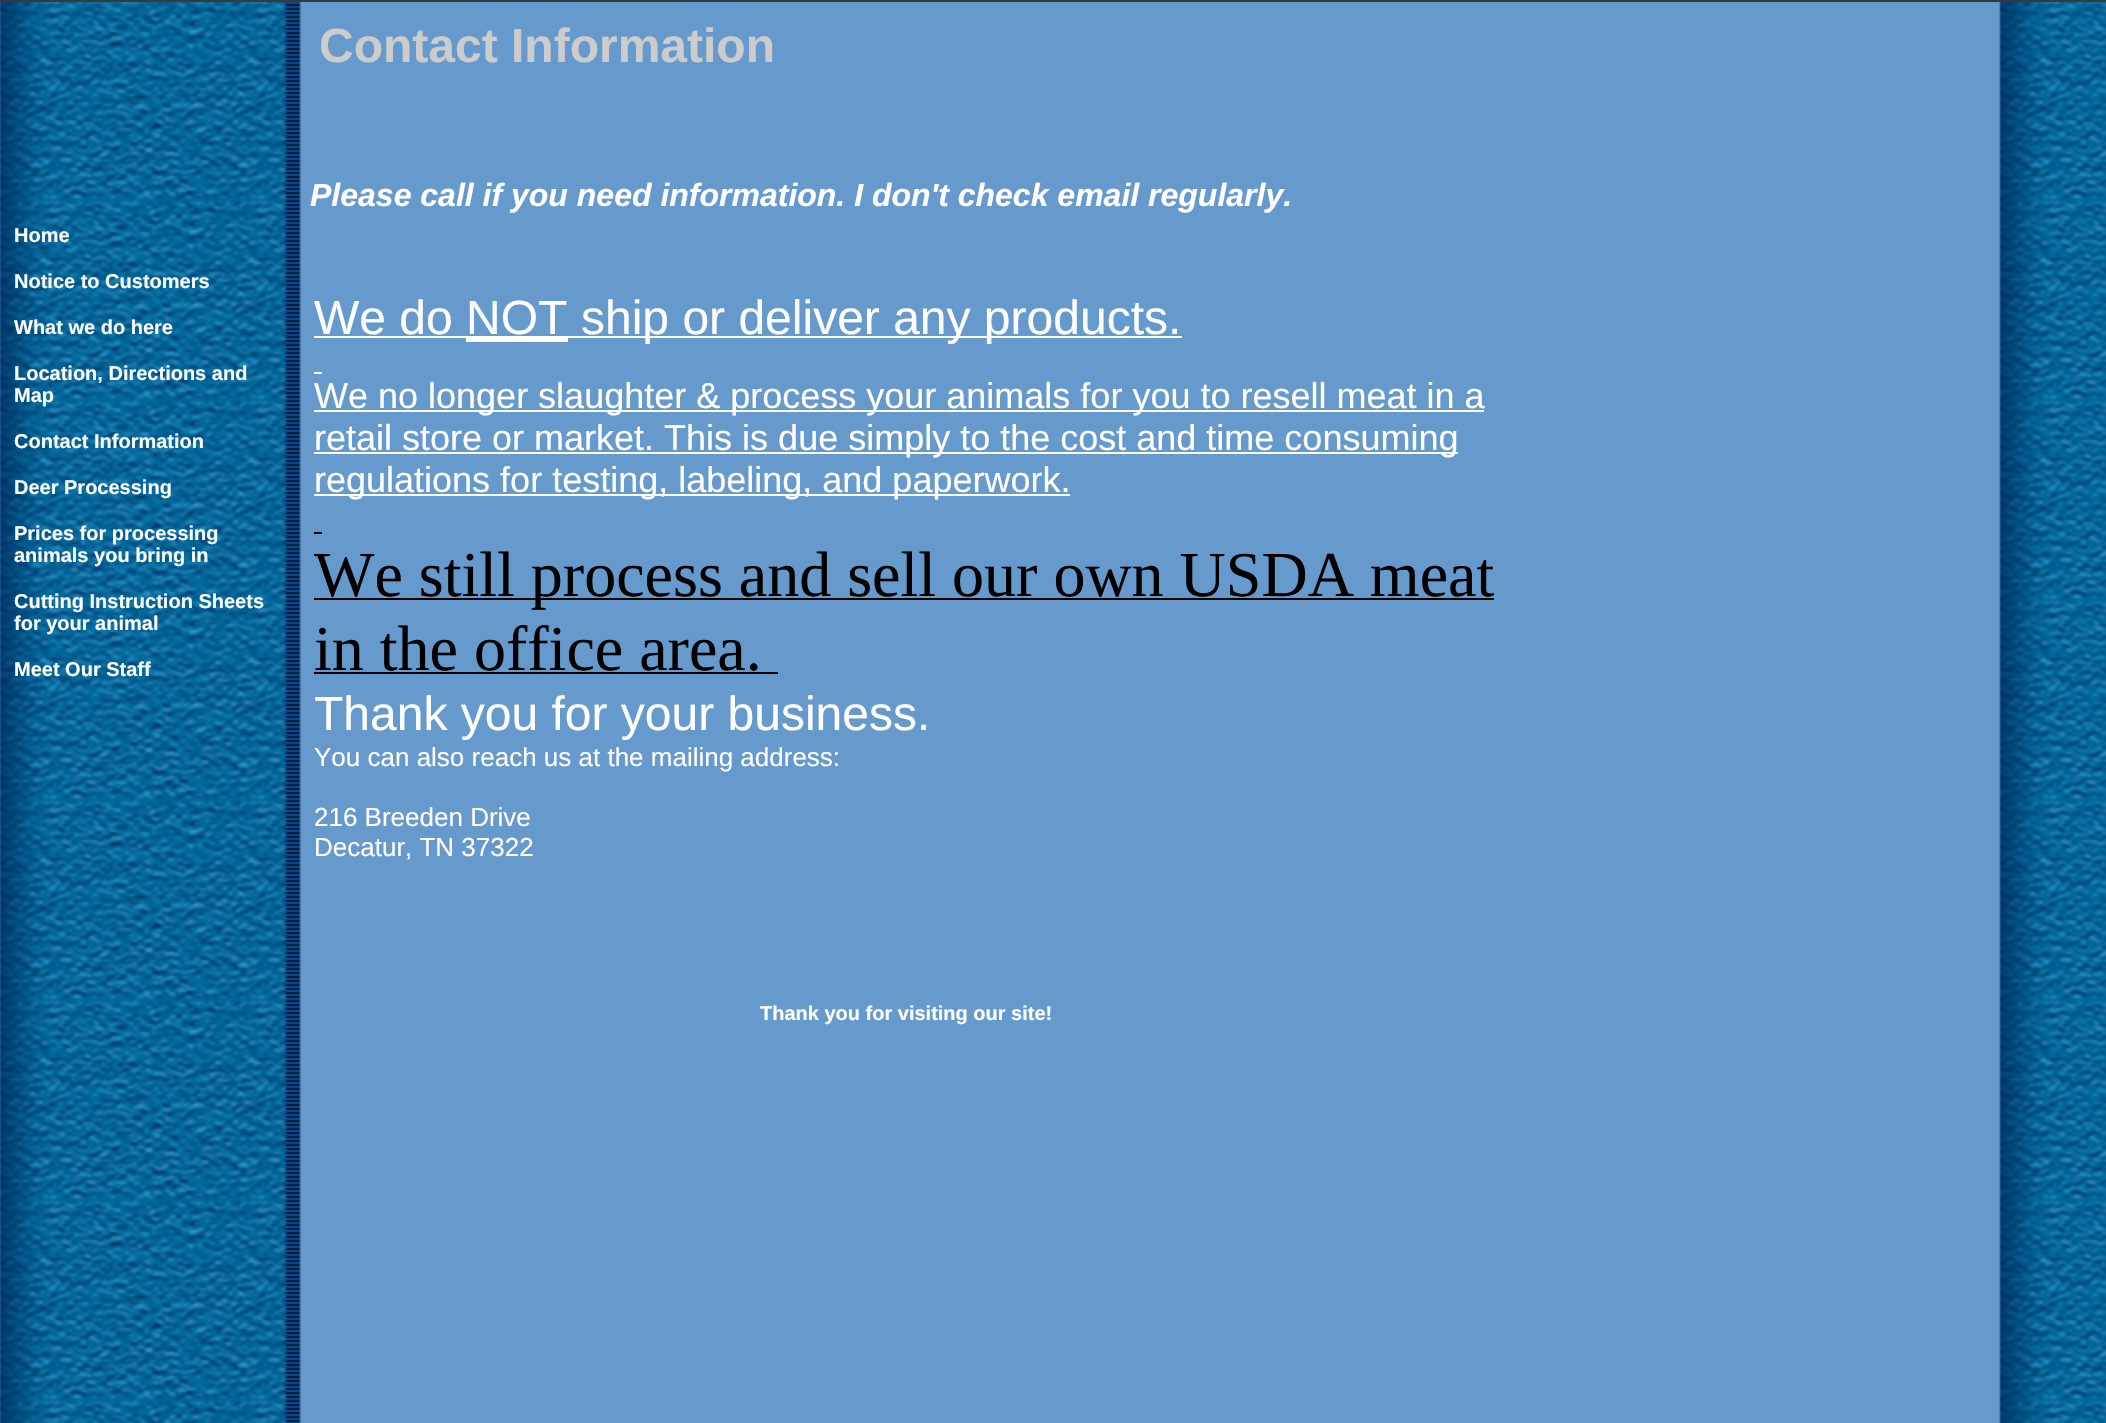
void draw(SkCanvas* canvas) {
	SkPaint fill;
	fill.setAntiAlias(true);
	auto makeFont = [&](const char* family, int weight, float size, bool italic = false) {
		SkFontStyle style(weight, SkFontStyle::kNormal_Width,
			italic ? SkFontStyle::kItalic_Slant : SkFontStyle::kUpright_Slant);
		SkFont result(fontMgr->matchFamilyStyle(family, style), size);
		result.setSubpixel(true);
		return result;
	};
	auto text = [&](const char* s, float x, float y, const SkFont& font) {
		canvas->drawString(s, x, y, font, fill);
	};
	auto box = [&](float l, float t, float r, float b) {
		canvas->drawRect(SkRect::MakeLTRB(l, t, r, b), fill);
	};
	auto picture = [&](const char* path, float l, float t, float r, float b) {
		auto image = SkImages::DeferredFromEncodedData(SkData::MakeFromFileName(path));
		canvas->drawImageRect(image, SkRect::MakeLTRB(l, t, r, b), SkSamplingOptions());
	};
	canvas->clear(0xFFFFFFFF);
	picture("image0.png", 0, 2, 2106, 1423);
	fill.setColor(0xFF393939);
	box(0, 0, 2106, 2);
	fill.setColor(0xFFFFFFFF);
	box(314, 336, 466, 338);
	box(466, 336, 568, 342);
	box(568, 336, 1182, 338);
	box(314, 372, 322, 374);
	box(314, 410, 1484, 412);
	box(314, 452, 1458, 454);
	box(314, 494, 1070, 496);
	fill.setColor(0xFF000000);
	box(314, 532, 322, 534);
	box(314, 598, 1494, 600);
	box(314, 672, 778, 674);
	auto font1 = makeFont("Liberation Sans", 700, 48);
	fill.setColor(0xFFCCCCCC);
	text("Contact Information", 319, 62, font1);
	auto font2 = makeFont("Liberation Sans", 700, 20);
	fill.setColor(0xFFFFFFFF);
	text("Home", 14, 242, font2);
	text("Notice to Customers", 14, 288, font2);
	text("What we do here", 14, 334, font2);
	text("Location, Directions and", 14, 380, font2);
	text("Map", 14, 402, font2);
	text("Contact Information", 14, 448, font2);
	text("Deer Processing", 14, 494, font2);
	text("Prices for processing", 14, 540, font2);
	text("animals you bring in", 14, 562, font2);
	text("Cutting Instruction Sheets", 14, 608, font2);
	text("for your animal", 14, 630, font2);
	text("Meet Our Staff", 14, 676, font2);
	auto font3 = makeFont("Liberation Sans", 700, 32, true);
	text("Please call if you need information. I don't check email regularly.", 310, 206, font3);
	auto font4 = makeFont("Liberation Sans", 400, 48);
	text("We do NOT", 314, 334, font4);
	text("ship or deliver any products.", 581, 334, font4);
	auto font5 = makeFont("Liberation Sans", 400, 36);
	text("We no longer slaughter & process your animals for you to resell meat in a", 314, 408, font5);
	text("retail store or market. This is due simply to the cost and time consuming", 314, 450, font5);
	text("regulations for testing, labeling, and paperwork.", 314, 492, font5);
	auto font6 = makeFont("Liberation Serif", 400, 64);
	fill.setColor(0xFF000000);
	text("We still process and sell our own USDA meat", 314, 596, font6);
	text("in the office area.", 314, 670, font6);
	fill.setColor(0xFFFFFFFF);
	text("Thank you for your business.", 314, 730, font4);
	auto font7 = makeFont("Liberation Sans", 400, 26);
	text("You can also reach us at the mailing address:", 314, 766, font7);
	text("216 Breeden Drive", 314, 826, font7);
	text("Decatur, TN 37322", 314, 856, font7);
	text("Thank you for visiting our site!", 760, 1020, font2);
}
